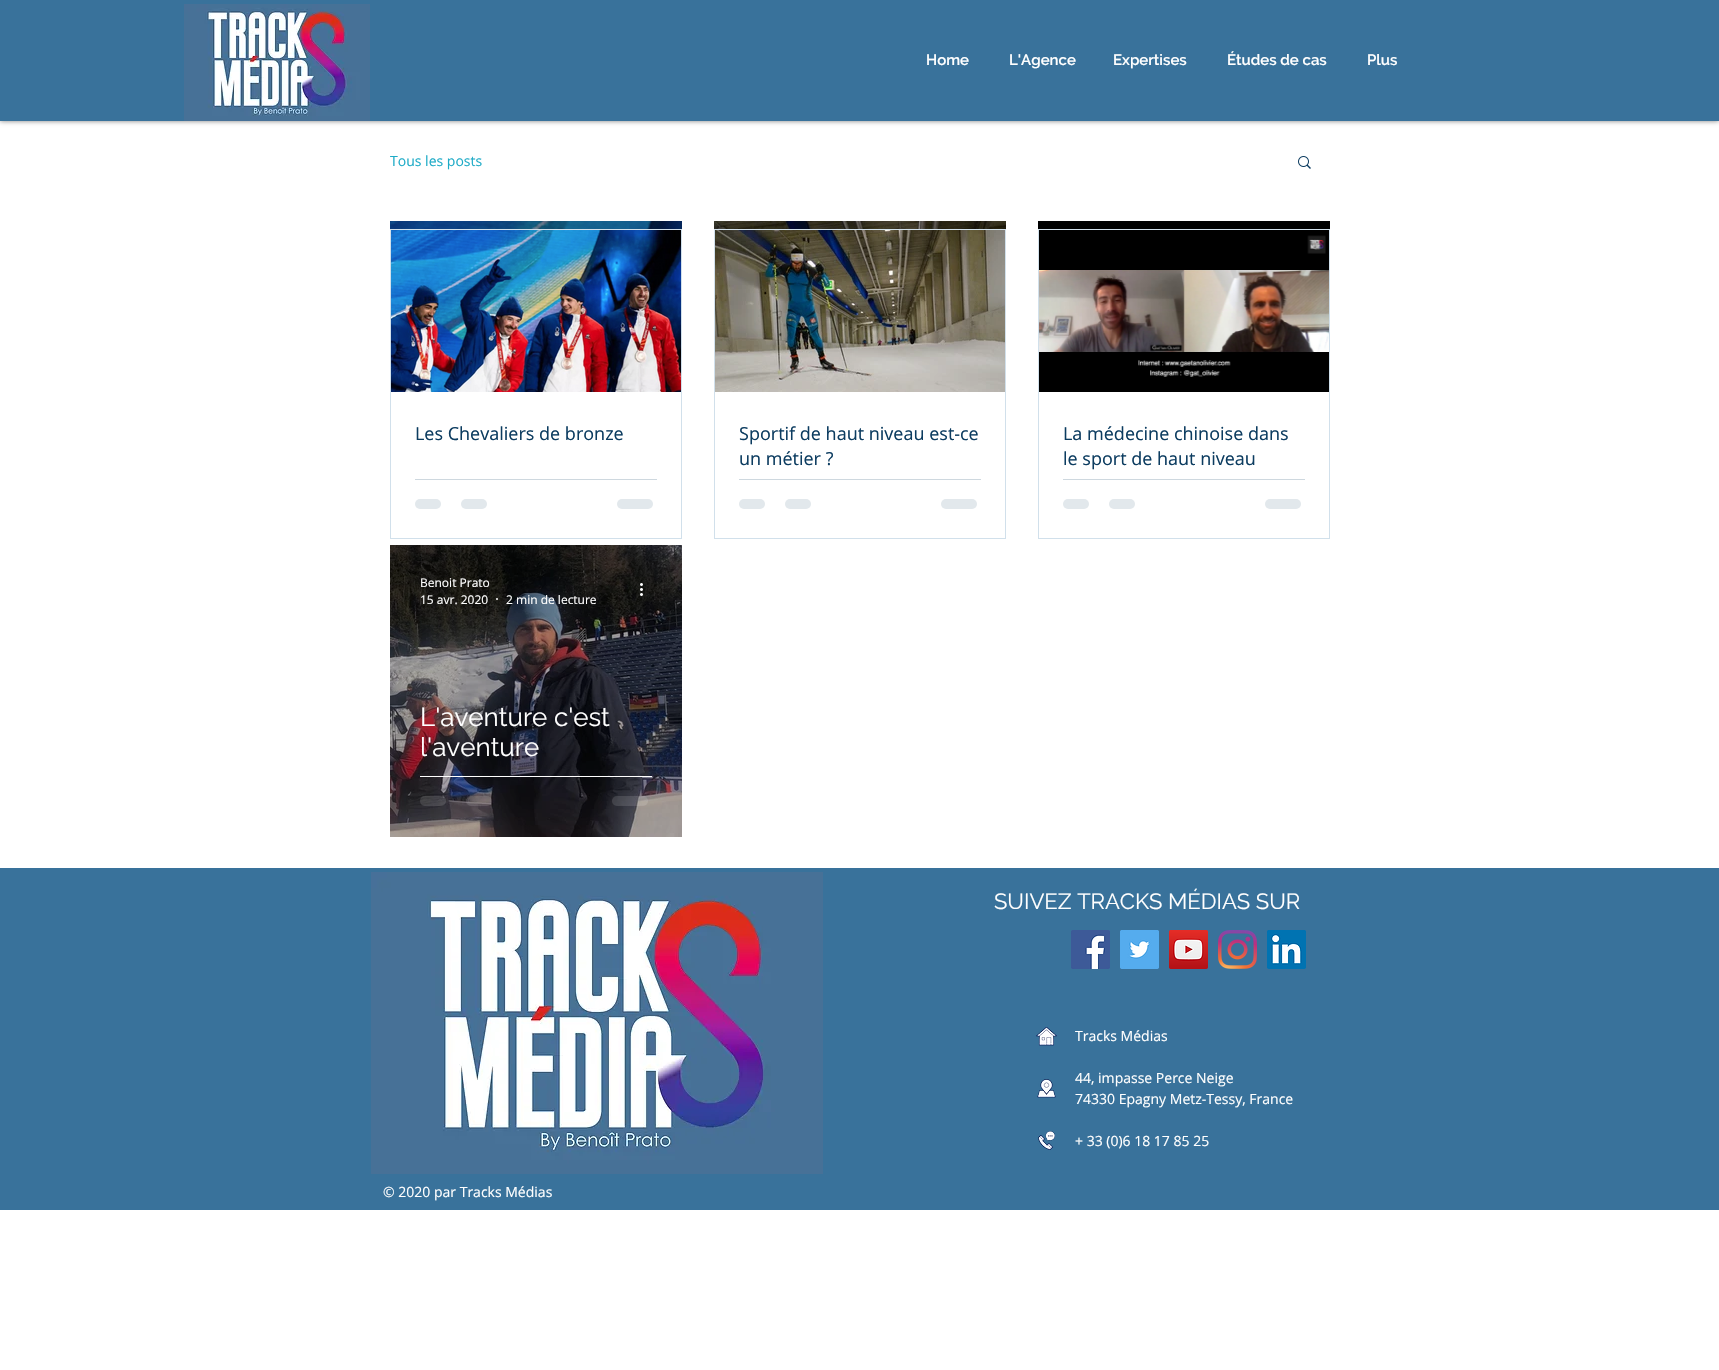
void draw(SkCanvas* canvas) {
	SkPaint fill;
	fill.setAntiAlias(true);
	auto makeFont = [&](const char* family, int weight, float size, bool italic = false) {
		SkFontStyle style(weight, SkFontStyle::kNormal_Width,
			italic ? SkFontStyle::kItalic_Slant : SkFontStyle::kUpright_Slant);
		SkFont result(fontMgr->matchFamilyStyle(family, style), size);
		result.setSubpixel(true);
		return result;
	};
	auto text = [&](const char* s, float x, float y, const SkFont& font) {
		canvas->drawString(s, x, y, font, fill);
	};
	auto box = [&](float l, float t, float r, float b) {
		canvas->drawRect(SkRect::MakeLTRB(l, t, r, b), fill);
	};
	auto roundBox = [&](float l, float t, float r, float b, float radius) {
		canvas->drawRoundRect(SkRect::MakeLTRB(l, t, r, b), radius, radius, fill);
	};
	auto picture = [&](const char* path, float l, float t, float r, float b) {
		auto image = SkImages::DeferredFromEncodedData(SkData::MakeFromFileName(path));
		canvas->drawImageRect(image, SkRect::MakeLTRB(l, t, r, b), SkSamplingOptions());
	};
	canvas->clear(0xFFFFFFFF);
	fill.setColor(0x80000000);
	fill.setMaskFilter(SkMaskFilter::MakeBlur(kNormal_SkBlurStyle, 2.5f));
	canvas->drawRect(SkRect::MakeLTRB(0, 0, 1719, 121), fill);
	fill.setMaskFilter(nullptr);
	fill.setColor(0xFF39729B);
	box(0, 0, 1719, 121);
	picture("image0.png", 184, 4, 370, 121);
	picture("image1.png", 1298, 156, 1311, 169);
	picture("image2.png", 390, 221, 682, 229);
	picture("image3.png", 714, 221, 1006, 229);
	picture("image4.png", 1038, 221, 1330, 235);
	picture("image5.png", 390, 545, 682, 837);
	fill.setColor(0xFFFFFFFF);
	canvas->drawCircle(497, 599, 1, fill);
	picture("image6.png", 640, 583, 643, 596);
	box(420, 776, 652, 777);
	fill.setColor(0x1FFFFFFF);
	roundBox(420, 796, 446, 806, 5);
	roundBox(466, 796, 492, 806, 5);
	roundBox(612, 796, 648, 806, 5);
	fill.setStyle(SkPaint::kStroke_Style);
	fill.setStrokeWidth(1);
	fill.setColor(0xFFD1E0EB);
	canvas->drawRect(SkRect::MakeLTRB(390.5f, 229.5f, 681.5f, 538.5f), fill);
	picture("image7.png", 391, 230, 681, 392);
	fill.setStyle(SkPaint::kFill_Style);
	fill.setColor(0xFFCED8DF);
	box(415, 479, 657, 480);
	fill.setColor(0xFFE2E8EC);
	roundBox(415, 499, 441, 509, 5);
	roundBox(461, 499, 487, 509, 5);
	roundBox(617, 499, 653, 509, 5);
	fill.setStyle(SkPaint::kStroke_Style);
	fill.setColor(0xFFD1E0EB);
	canvas->drawRect(SkRect::MakeLTRB(714.5f, 229.5f, 1005.5f, 538.5f), fill);
	picture("image8.png", 715, 230, 1005, 392);
	fill.setStyle(SkPaint::kFill_Style);
	fill.setColor(0xFFCED8DF);
	box(739, 479, 981, 480);
	fill.setColor(0xFFE2E8EC);
	roundBox(739, 499, 765, 509, 5);
	roundBox(785, 499, 811, 509, 5);
	roundBox(941, 499, 977, 509, 5);
	fill.setStyle(SkPaint::kStroke_Style);
	fill.setColor(0xFFD1E0EB);
	canvas->drawRect(SkRect::MakeLTRB(1038.5f, 229.5f, 1329.5f, 538.5f), fill);
	picture("image9.png", 1039, 235, 1329, 392);
	fill.setStyle(SkPaint::kFill_Style);
	fill.setColor(0xFFCED8DF);
	box(1063, 479, 1305, 480);
	fill.setColor(0xFFE2E8EC);
	roundBox(1063, 499, 1089, 509, 5);
	roundBox(1109, 499, 1135, 509, 5);
	roundBox(1265, 499, 1301, 509, 5);
	fill.setColor(0xFF39729B);
	box(0, 868, 1719, 1210);
	picture("image10.png", 371, 872, 823, 1174);
	picture("image11.png", 1071, 930, 1110, 969);
	picture("image12.png", 1120, 930, 1159, 969);
	picture("image13.png", 1169, 930, 1208, 969);
	picture("image14.png", 1218, 930, 1257, 969);
	picture("image15.png", 1267, 930, 1306, 969);
	picture("image16.png", 1036, 1027, 1057, 1046);
	picture("image17.png", 1037, 1079, 1056, 1098);
	picture("image18.png", 1038, 1131, 1055, 1150);
	auto font1 = makeFont("Raleway", 600, 15);
	fill.setColor(0xFFFFFFFF);
	text("Home", 926, 65, font1);
	text("L'Agence", 1009, 65, font1);
	text("Expertises", 1113, 65, font1);
	text("Études de cas", 1227, 65, font1);
	text("Plus", 1367, 65, font1);
	auto font2 = makeFont("Open Sans", 400, 14);
	fill.setColor(0xFF1EABC7);
	text("Tous les posts", 390, 166, font2);
	auto font3 = makeFont("Open Sans", 400, 12);
	fill.setColor(0xFFFFFFFF);
	text("Benoit Prato", 420, 587, font3);
	text("15 avr. 2020", 420, 604, font3);
	text("2 min de lecture", 506, 604, font3);
	auto font4 = makeFont("Raleway", 400, 26);
	text("L'aventure c'est", 420, 726, font4);
	text("l'aventure", 420, 756, font4);
	auto font5 = makeFont("Open Sans", 400, 18);
	fill.setColor(0xFF0C3C60);
	text("Les Chevaliers de bronze", 415, 440, font5);
	text("Sportif de haut niveau est-ce", 739, 440, font5);
	text("un métier ?", 739, 465, font5);
	text("La médecine chinoise dans", 1063, 440, font5);
	text("le sport de haut niveau", 1063, 465, font5);
	auto font6 = makeFont("Raleway", 400, 22);
	fill.setColor(0xFFFFFFFF);
	text("SUIVEZ TRACKS MÉDIAS SUR", 994, 909, font6);
	text("Tracks Médias", 1075, 1041, font2);
	text("44, impasse Perce Neige", 1075, 1083, font2);
	text("74330 Epagny Metz-Tessy, France", 1075, 1104, font2);
	text("+ 33 (0)6 18 17 85 25", 1075, 1146, font2);
	text("© 2020 par Tracks Médias", 383, 1197, font2);
}
